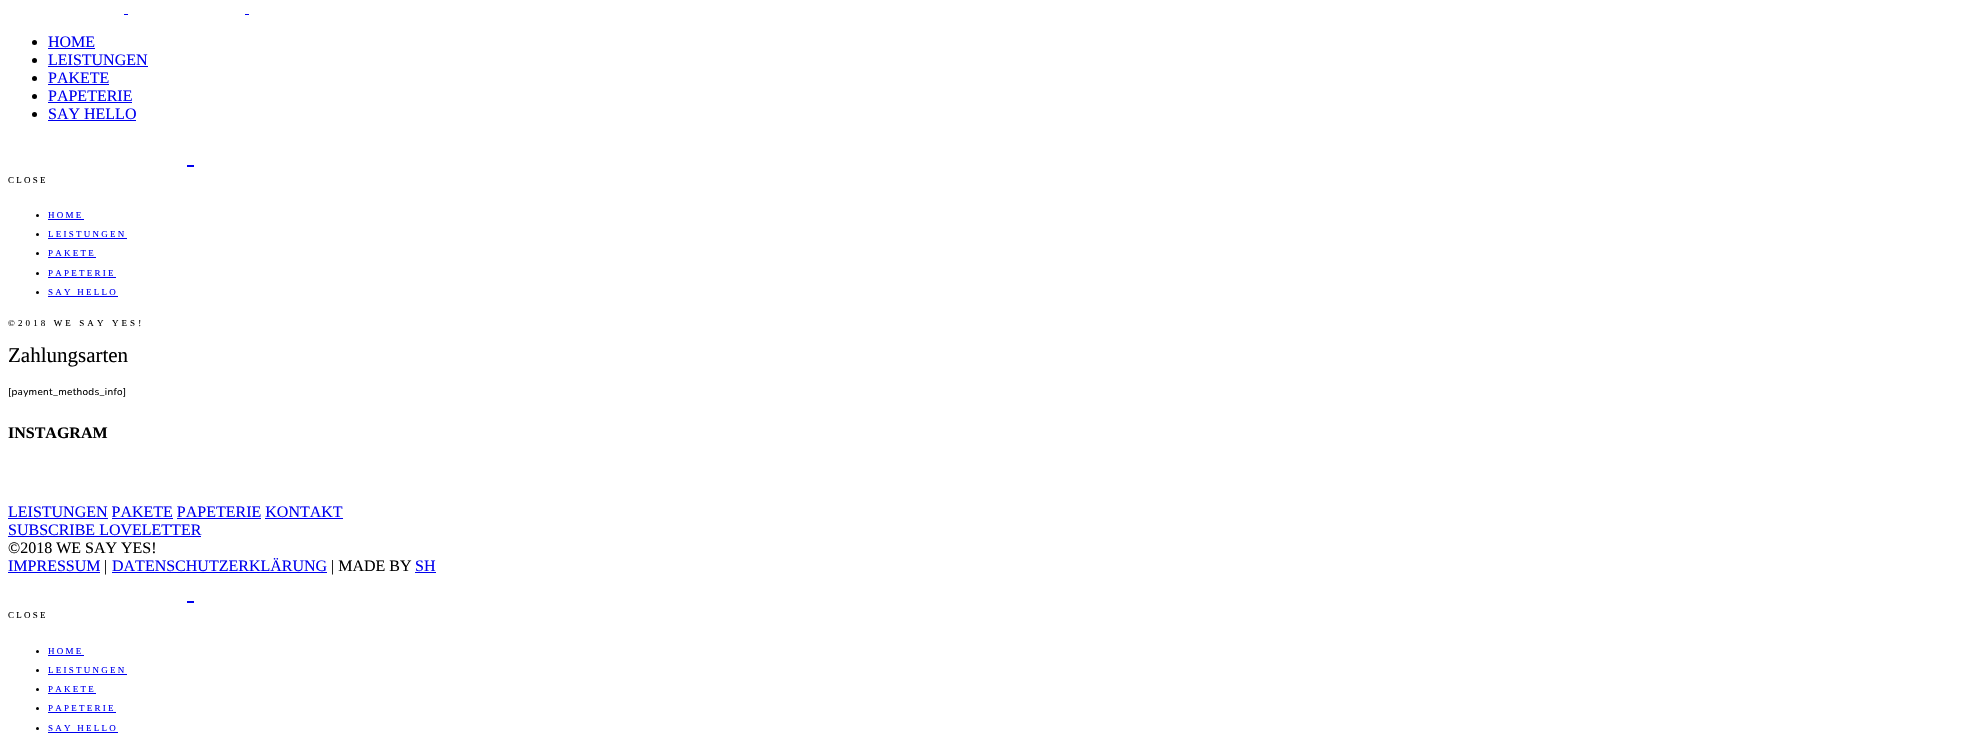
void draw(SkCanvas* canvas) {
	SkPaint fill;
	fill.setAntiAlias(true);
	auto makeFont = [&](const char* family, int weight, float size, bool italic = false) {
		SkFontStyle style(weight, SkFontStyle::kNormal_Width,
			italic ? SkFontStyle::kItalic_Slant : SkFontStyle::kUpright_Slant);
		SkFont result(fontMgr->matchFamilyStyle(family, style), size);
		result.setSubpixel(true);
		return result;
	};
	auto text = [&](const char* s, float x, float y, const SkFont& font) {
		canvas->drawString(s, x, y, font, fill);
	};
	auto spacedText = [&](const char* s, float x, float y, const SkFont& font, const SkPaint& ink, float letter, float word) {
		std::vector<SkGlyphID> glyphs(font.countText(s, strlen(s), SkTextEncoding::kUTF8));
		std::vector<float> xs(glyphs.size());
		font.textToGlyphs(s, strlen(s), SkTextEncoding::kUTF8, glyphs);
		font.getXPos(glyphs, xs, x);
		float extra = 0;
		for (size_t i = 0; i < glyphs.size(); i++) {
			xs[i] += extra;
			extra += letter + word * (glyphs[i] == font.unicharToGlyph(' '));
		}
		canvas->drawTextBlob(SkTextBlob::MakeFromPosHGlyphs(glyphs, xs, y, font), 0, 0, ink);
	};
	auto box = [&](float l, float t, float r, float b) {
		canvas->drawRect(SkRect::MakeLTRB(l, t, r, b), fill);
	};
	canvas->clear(0xFFFFFFFF);
	fill.setColor(0xFF0000EE);
	box(124, 14, 128, 15);
	box(245, 14, 249, 15);
	fill.setColor(0xFF000000);
	canvas->drawCircle(34.5f, 42.5f, 2.5f, fill);
	fill.setColor(0xFF0000EE);
	box(48, 48, 95, 49);
	fill.setColor(0xFF000000);
	canvas->drawCircle(34.5f, 60.5f, 2.5f, fill);
	fill.setColor(0xFF0000EE);
	box(48, 66, 148, 67);
	fill.setColor(0xFF000000);
	canvas->drawCircle(34.5f, 78.5f, 2.5f, fill);
	fill.setColor(0xFF0000EE);
	box(48, 84, 109, 85);
	fill.setColor(0xFF000000);
	canvas->drawCircle(34.5f, 96.5f, 2.5f, fill);
	fill.setColor(0xFF0000EE);
	box(48, 102, 132, 103);
	fill.setColor(0xFF000000);
	canvas->drawCircle(34.5f, 114.5f, 2.5f, fill);
	fill.setColor(0xFF0000EE);
	box(48, 120, 136, 121);
	box(187, 165, 194, 167);
	fill.setColor(0xFF000000);
	canvas->drawCircle(37.5f, 215.5f, 1.5f, fill);
	fill.setColor(0xFF0000EE);
	box(48, 219, 84, 220);
	fill.setColor(0xFF000000);
	canvas->drawCircle(37.5f, 234.5f, 1.5f, fill);
	fill.setColor(0xFF0000EE);
	box(48, 238, 127, 239);
	fill.setColor(0xFF000000);
	canvas->drawCircle(37.5f, 253.5f, 1.5f, fill);
	fill.setColor(0xFF0000EE);
	box(48, 257, 96, 258);
	fill.setColor(0xFF000000);
	canvas->drawCircle(37.5f, 273.5f, 1.5f, fill);
	fill.setColor(0xFF0000EE);
	box(48, 277, 116, 278);
	fill.setColor(0xFF000000);
	canvas->drawCircle(37.5f, 292.5f, 1.5f, fill);
	fill.setColor(0xFF0000EE);
	box(48, 296, 118, 297);
	box(8, 518, 108, 519);
	box(112, 518, 173, 519);
	box(177, 518, 261, 519);
	box(265, 518, 343, 519);
	box(8, 536, 201, 537);
	box(8, 572, 100, 573);
	box(112, 572, 327, 573);
	box(415, 572, 436, 573);
	box(187, 601, 194, 603);
	fill.setColor(0xFF000000);
	canvas->drawCircle(37.5f, 651.5f, 1.5f, fill);
	fill.setColor(0xFF0000EE);
	box(48, 655, 84, 656);
	fill.setColor(0xFF000000);
	canvas->drawCircle(37.5f, 670.5f, 1.5f, fill);
	fill.setColor(0xFF0000EE);
	box(48, 674, 127, 675);
	fill.setColor(0xFF000000);
	canvas->drawCircle(37.5f, 689.5f, 1.5f, fill);
	fill.setColor(0xFF0000EE);
	box(48, 693, 96, 694);
	fill.setColor(0xFF000000);
	canvas->drawCircle(37.5f, 708.5f, 1.5f, fill);
	fill.setColor(0xFF0000EE);
	box(48, 712, 116, 713);
	fill.setColor(0xFF000000);
	canvas->drawCircle(37.5f, 728.5f, 1.5f, fill);
	fill.setColor(0xFF0000EE);
	box(48, 732, 118, 733);
	auto font1 = makeFont("Liberation Serif", 400, 16);
	text("HOME", 48, 47, font1);
	text("LEISTUNGEN", 48, 65, font1);
	text("PAKETE", 48, 83, font1);
	text("PAPETERIE", 48, 101, font1);
	text("SAY HELLO", 48, 119, font1);
	auto font2 = makeFont("Liberation Serif", 400, 9);
	fill.setColor(0xFF000000);
	spacedText("CLOSE", 8, 183, font2, fill, 2.25f, 0);
	fill.setColor(0xFF0000EE);
	spacedText("HOME", 48, 218, font2, fill, 2.25f, 0);
	spacedText("LEISTUNGEN", 48, 237, font2, fill, 2.25f, 0);
	spacedText("PAKETE", 48, 256, font2, fill, 2.25f, 0);
	spacedText("PAPETERIE", 48, 276, font2, fill, 2.25f, 0);
	spacedText("SAY HELLO", 48, 295, font2, fill, 2.25f, 0);
	fill.setColor(0xFF000000);
	spacedText("©2018 WE SAY YES!", 8, 326, font2, fill, 3.1f, 0);
	auto font3 = makeFont("Liberation Serif", 400, 21);
	text("Zahlungsarten", 8, 362, font3);
	auto font4 = makeFont("Nunito", 400, 10);
	spacedText("[payment_methods_info]", 8, 395, font4, fill, 0.3f, 0);
	auto font5 = makeFont("Liberation Serif", 700, 16);
	text("INSTAGRAM", 8, 438, font5);
	fill.setColor(0xFF0000EE);
	text("LEISTUNGEN PAKETE PAPETERIE KONTAKT", 8, 517, font1);
	text("SUBSCRIBE LOVELETTER", 8, 535, font1);
	fill.setColor(0xFF000000);
	text("©2018 WE SAY YES!", 8, 553, font1);
	fill.setColor(0xFF0000EE);
	text("IMPRESSUM", 8, 571, font1);
	fill.setColor(0xFF000000);
	text("|", 104, 571, font1);
	fill.setColor(0xFF0000EE);
	text("DATENSCHUTZERKLÄRUNG", 112, 571, font1);
	fill.setColor(0xFF000000);
	text("| MADE BY", 331, 571, font1);
	fill.setColor(0xFF0000EE);
	text("SH", 415, 571, font1);
	fill.setColor(0xFF000000);
	spacedText("CLOSE", 8, 618, font2, fill, 2.25f, 0);
	fill.setColor(0xFF0000EE);
	spacedText("HOME", 48, 654, font2, fill, 2.25f, 0);
	spacedText("LEISTUNGEN", 48, 673, font2, fill, 2.25f, 0);
	spacedText("PAKETE", 48, 692, font2, fill, 2.25f, 0);
	spacedText("PAPETERIE", 48, 711, font2, fill, 2.25f, 0);
	spacedText("SAY HELLO", 48, 731, font2, fill, 2.25f, 0);
}
